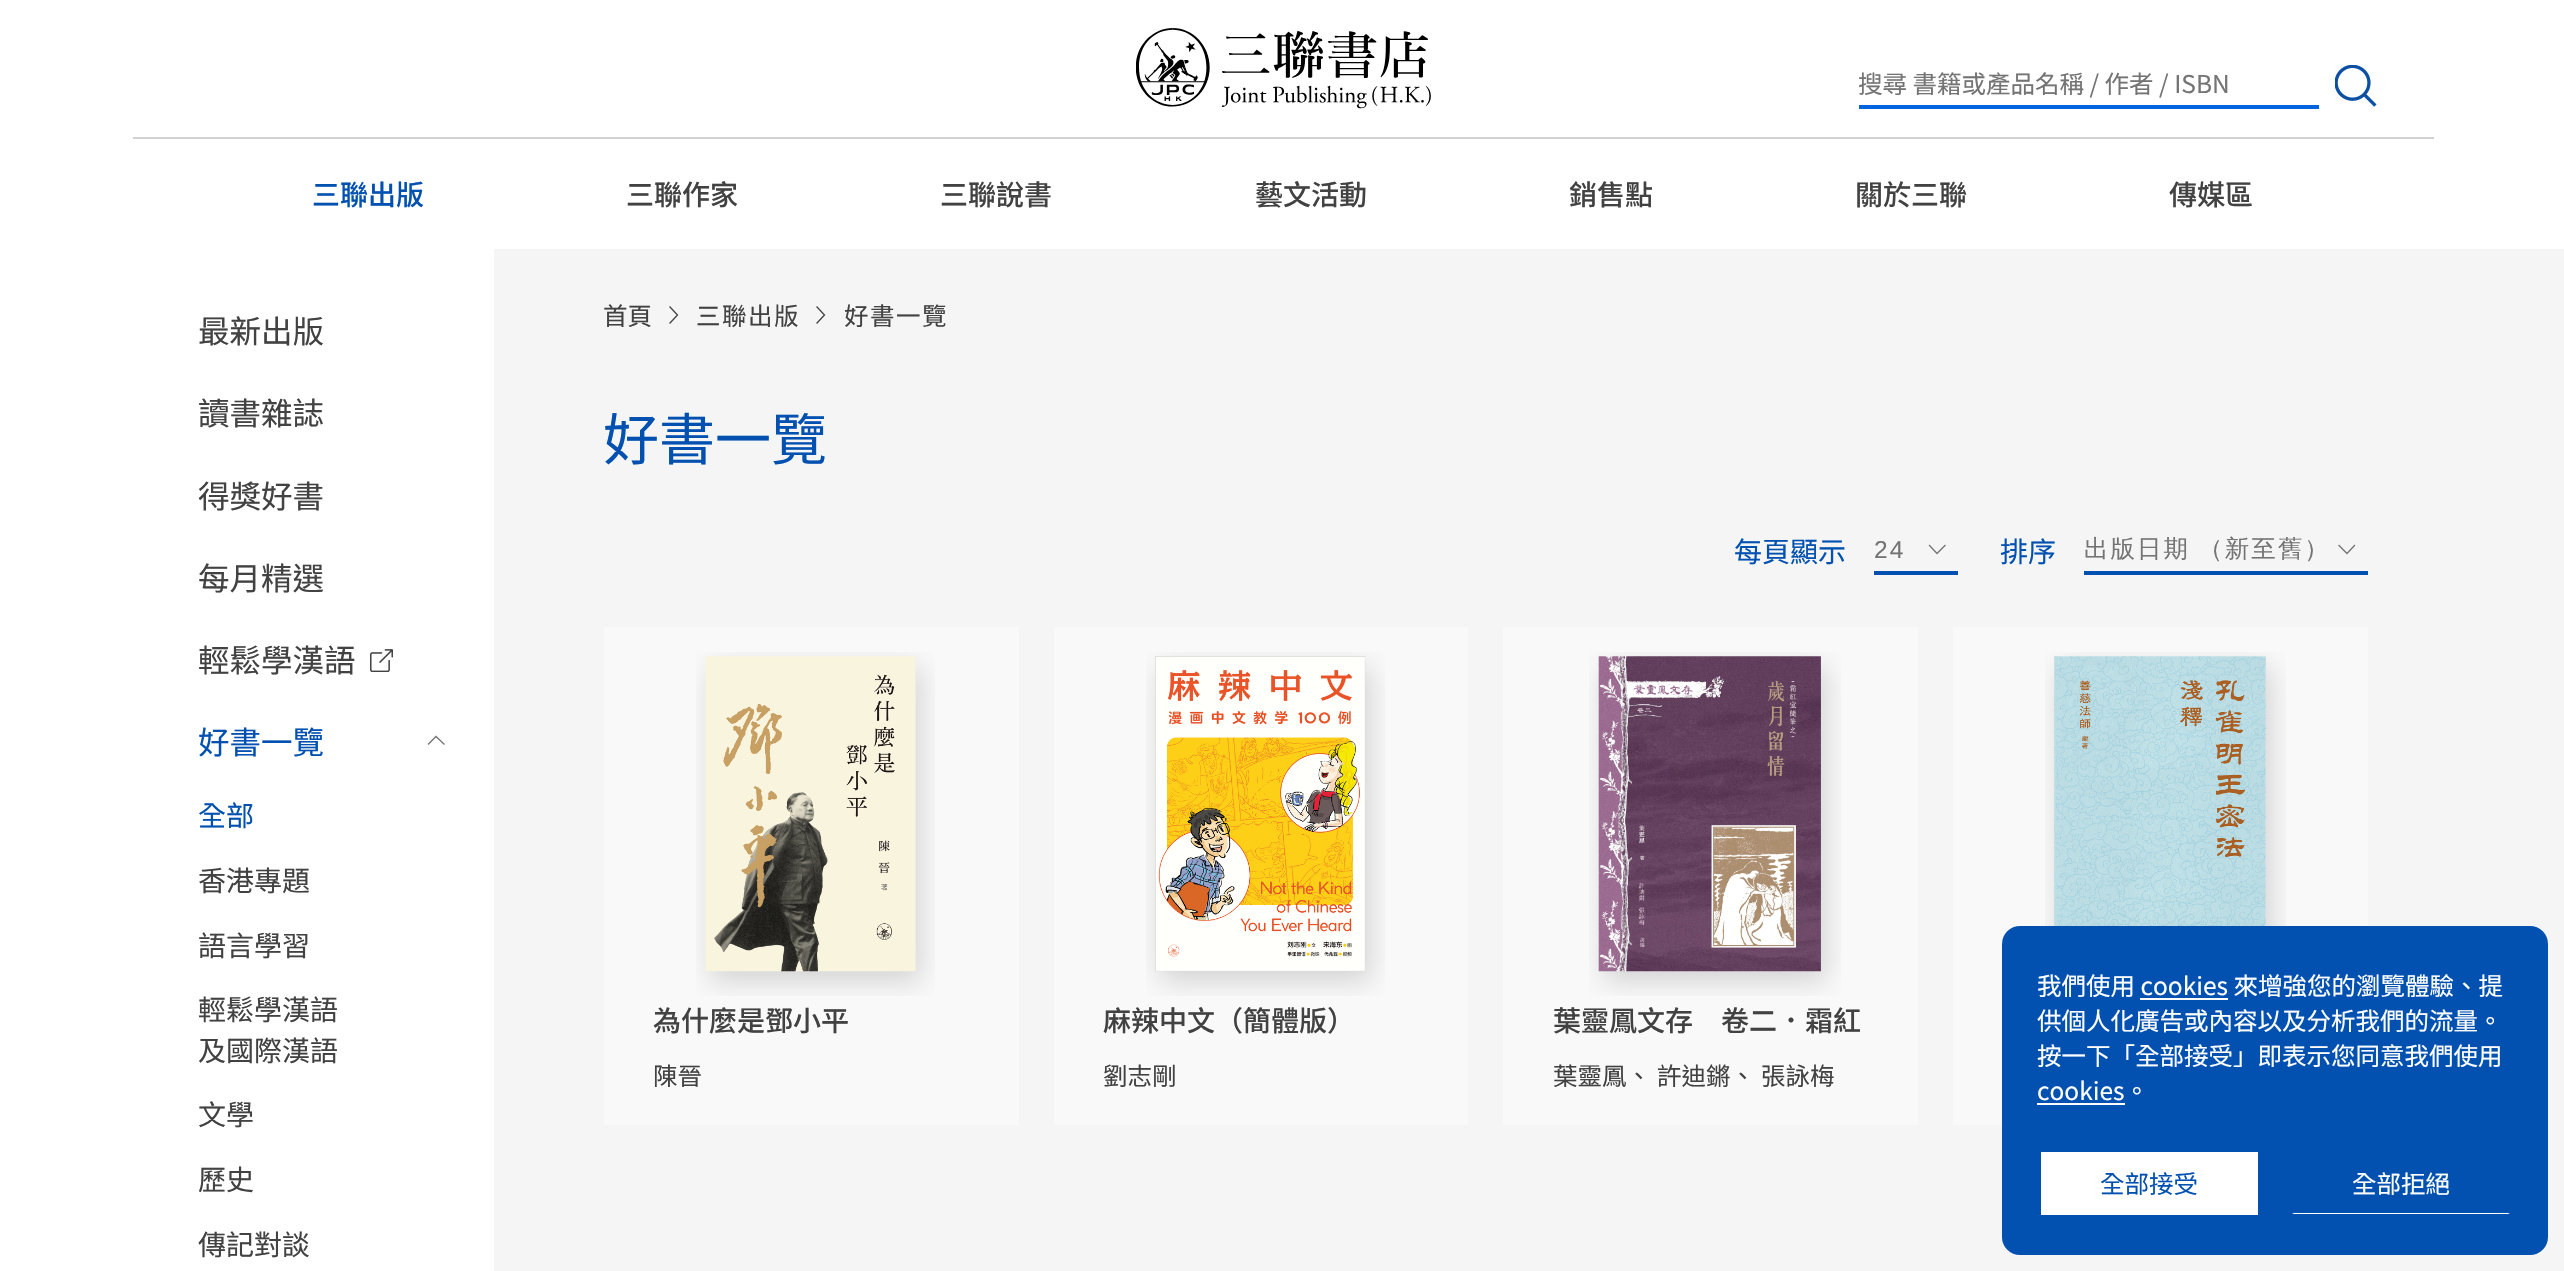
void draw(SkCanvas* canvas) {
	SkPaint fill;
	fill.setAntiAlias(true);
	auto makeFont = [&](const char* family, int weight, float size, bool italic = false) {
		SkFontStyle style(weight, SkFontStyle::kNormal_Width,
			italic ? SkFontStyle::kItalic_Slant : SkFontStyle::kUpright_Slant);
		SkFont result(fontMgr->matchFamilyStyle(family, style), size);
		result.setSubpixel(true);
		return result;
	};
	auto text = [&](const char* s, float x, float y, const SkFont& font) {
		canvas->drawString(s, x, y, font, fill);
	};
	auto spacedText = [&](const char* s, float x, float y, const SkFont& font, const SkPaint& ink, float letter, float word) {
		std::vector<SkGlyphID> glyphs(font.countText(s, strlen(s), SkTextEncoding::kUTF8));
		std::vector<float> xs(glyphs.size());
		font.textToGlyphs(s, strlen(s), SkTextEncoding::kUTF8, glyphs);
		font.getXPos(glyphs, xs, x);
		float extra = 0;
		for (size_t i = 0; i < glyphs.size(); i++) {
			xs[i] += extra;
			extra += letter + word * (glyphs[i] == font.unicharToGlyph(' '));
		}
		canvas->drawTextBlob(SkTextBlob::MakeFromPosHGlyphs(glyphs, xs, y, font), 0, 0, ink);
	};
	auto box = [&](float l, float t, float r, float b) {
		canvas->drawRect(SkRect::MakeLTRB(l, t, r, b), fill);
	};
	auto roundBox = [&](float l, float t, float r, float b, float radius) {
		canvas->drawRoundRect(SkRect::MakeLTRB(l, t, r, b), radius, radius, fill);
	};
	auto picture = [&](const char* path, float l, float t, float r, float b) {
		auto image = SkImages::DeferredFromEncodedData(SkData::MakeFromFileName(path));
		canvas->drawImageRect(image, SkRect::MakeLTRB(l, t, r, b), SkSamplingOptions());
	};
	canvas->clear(0xFFFFFFFF);
	fill.setColor(0xFFD1D1D1);
	box(133, 137, 2434, 139);
	picture("image0.png", 1136, 28, 1431, 109);
	fill.setColor(0xFF0265DD);
	box(1859, 105, 2319, 109);
	picture("image1.png", 2335, 65, 2377, 107);
	picture("image2.png", 370, 649, 393, 672);
	fill.setStyle(SkPaint::kStroke_Style);
	fill.setStrokeWidth(1.3f);
	fill.setStrokeCap(SkPaint::kSquare_Cap);
	fill.setColor(0xFF747474);
	canvas->drawPath(SkPathBuilder().moveTo(428.5f, 744).lineTo(436, 736.5f).lineTo(444, 744).detach(), fill);
	fill.setStyle(SkPaint::kFill_Style);
	fill.setColor(0xFFF4F5F4);
	box(494, 249, 2564, 1271);
	fill.setStyle(SkPaint::kStroke_Style);
	fill.setColor(0xFF424242);
	canvas->drawPath(SkPathBuilder().moveTo(670, 307).lineTo(677.5f, 315).lineTo(670, 323).detach(), fill);
	canvas->drawPath(SkPathBuilder().moveTo(817, 307).lineTo(824.5f, 315).lineTo(817, 323).detach(), fill);
	fill.setStyle(SkPaint::kFill_Style);
	fill.setColor(0xFF0251B1);
	box(1874, 571, 1958, 575);
	fill.setStyle(SkPaint::kStroke_Style);
	fill.setColor(0xFF747474);
	canvas->drawPath(SkPathBuilder().moveTo(1945, 545.5f).lineTo(1937, 553.5f).lineTo(1929.5f, 545.5f).detach(), fill);
	fill.setStyle(SkPaint::kFill_Style);
	fill.setColor(0xFF0251B1);
	box(2084, 571, 2368, 575);
	fill.setStyle(SkPaint::kStroke_Style);
	fill.setColor(0xFF747474);
	canvas->drawPath(SkPathBuilder().moveTo(2354.5f, 545.5f).lineTo(2347, 553.5f).lineTo(2339, 545.5f).detach(), fill);
	fill.setStyle(SkPaint::kFill_Style);
	fill.setColor(0xFFF8F9F8);
	box(604, 627, 1019, 1125);
	picture("image3.png", 696, 652, 935, 996);
	box(1054, 627, 1468, 1125);
	picture("image4.png", 1146, 652, 1385, 996);
	box(1503, 627, 1918, 1125);
	picture("image5.png", 1589, 652, 1841, 996);
	box(1953, 627, 2368, 1125);
	picture("image6.png", 2045, 652, 2286, 926);
	fill.setColor(0xFF0251B1);
	roundBox(2002, 926, 2548, 1255, 18);
	fill.setColor(0xFFFFFFFF);
	box(2140, 998, 2228, 1000);
	box(2037, 1103, 2125, 1105);
	box(2041, 1152, 2258, 1215);
	canvas->drawPath(SkPathBuilder().moveTo(2510, 1214).lineTo(2292, 1214).lineTo(2294, 1213).lineTo(2508, 1213).close().detach(), fill);
	auto font1 = makeFont("Noto Sans HK", 400, 24.5f);
	fill.setColor(0xFF747474);
	text("搜尋 書籍或產品名稱 / 作者 / ISBN", 1858, 93, font1);
	auto font2 = makeFont("Noto Sans HK", 500, 28);
	fill.setColor(0xFF0251B1);
	text("三聯出版", 312, 205, font2);
	fill.setColor(0xFF424242);
	text("三聯作家", 626, 205, font2);
	text("三聯說書", 940, 205, font2);
	text("藝文活動", 1255, 205, font2);
	text("銷售點", 1569, 205, font2);
	text("關於三聯", 1855, 205, font2);
	text("傳媒區", 2169, 205, font2);
	auto font3 = makeFont("Noto Sans HK", 400, 31.5f);
	text("最新出版", 198, 343, font3);
	text("讀書雜誌", 198, 425, font3);
	text("得獎好書", 198, 508, font3);
	text("每月精選", 198, 590, font3);
	text("輕鬆學漢語", 198, 672, font3);
	fill.setColor(0xFF0251B1);
	text("好書一覽", 198, 754, font3);
	auto font4 = makeFont("Noto Sans HK", 400, 28);
	text("全部", 198, 826, font4);
	fill.setColor(0xFF424242);
	text("香港專題", 198, 891, font4);
	text("語言學習", 198, 956, font4);
	text("輕鬆學漢語", 198, 1020, font4);
	text("及國際漢語", 198, 1061, font4);
	text("文學", 198, 1125, font4);
	text("歷史", 198, 1190, font4);
	text("傳記對談", 198, 1255, font4);
	text("首頁", 603, 325, font1);
	spacedText("三聯出版", 696, 325, font1, fill, 1.5f, 0);
	spacedText("好書一覽", 844, 325, font1, fill, 1.5f, 0);
	auto font5 = makeFont("Noto Sans HK", 400, 56);
	fill.setColor(0xFF0251B1);
	text("好書一覽", 603, 460, font5);
	text("每頁顯示", 1734, 562, font4);
	auto font6 = makeFont("Liberation Sans", 400, 24.5f);
	fill.setColor(0xFF747474);
	spacedText("24", 1874, 558, font6, fill, 2, 0);
	fill.setColor(0xFF0251B1);
	text("排序", 2000, 562, font4);
	auto font7 = makeFont("WenQuanYi Zen Hei", 500, 24.5f);
	fill.setColor(0xFF747474);
	spacedText("出版日期 （新至舊）", 2084, 557, font7, fill, 2, -1);
	fill.setColor(0xFF424242);
	text("為什麼是鄧小平", 653, 1031, font2);
	text("陳晉", 653, 1085, font1);
	text("麻辣中文（簡體版）", 1103, 1031, font2);
	text("劉志剛", 1103, 1085, font1);
	text("葉靈鳳文存　卷二．霜紅", 1553, 1031, font2);
	text("葉靈鳳、", 1553, 1085, font1);
	text("許迪鏘、", 1657, 1085, font1);
	text("張詠梅", 1761, 1085, font1);
	fill.setColor(0xFFFFFFFF);
	text("我們使用 cookies 來增強您的瀏覽體驗、提", 2037, 995, font1);
	text("供個人化廣告或內容以及分析我們的流量。", 2037, 1030, font1);
	text("按一下「全部接受」即表示您同意我們使用", 2037, 1065, font1);
	text("cookies。", 2037, 1100, font1);
	fill.setColor(0xFF0251B1);
	text("全部接受", 2100, 1193, font1);
	fill.setColor(0xFFFFFFFF);
	text("全部拒絕", 2352, 1193, font1);
}
